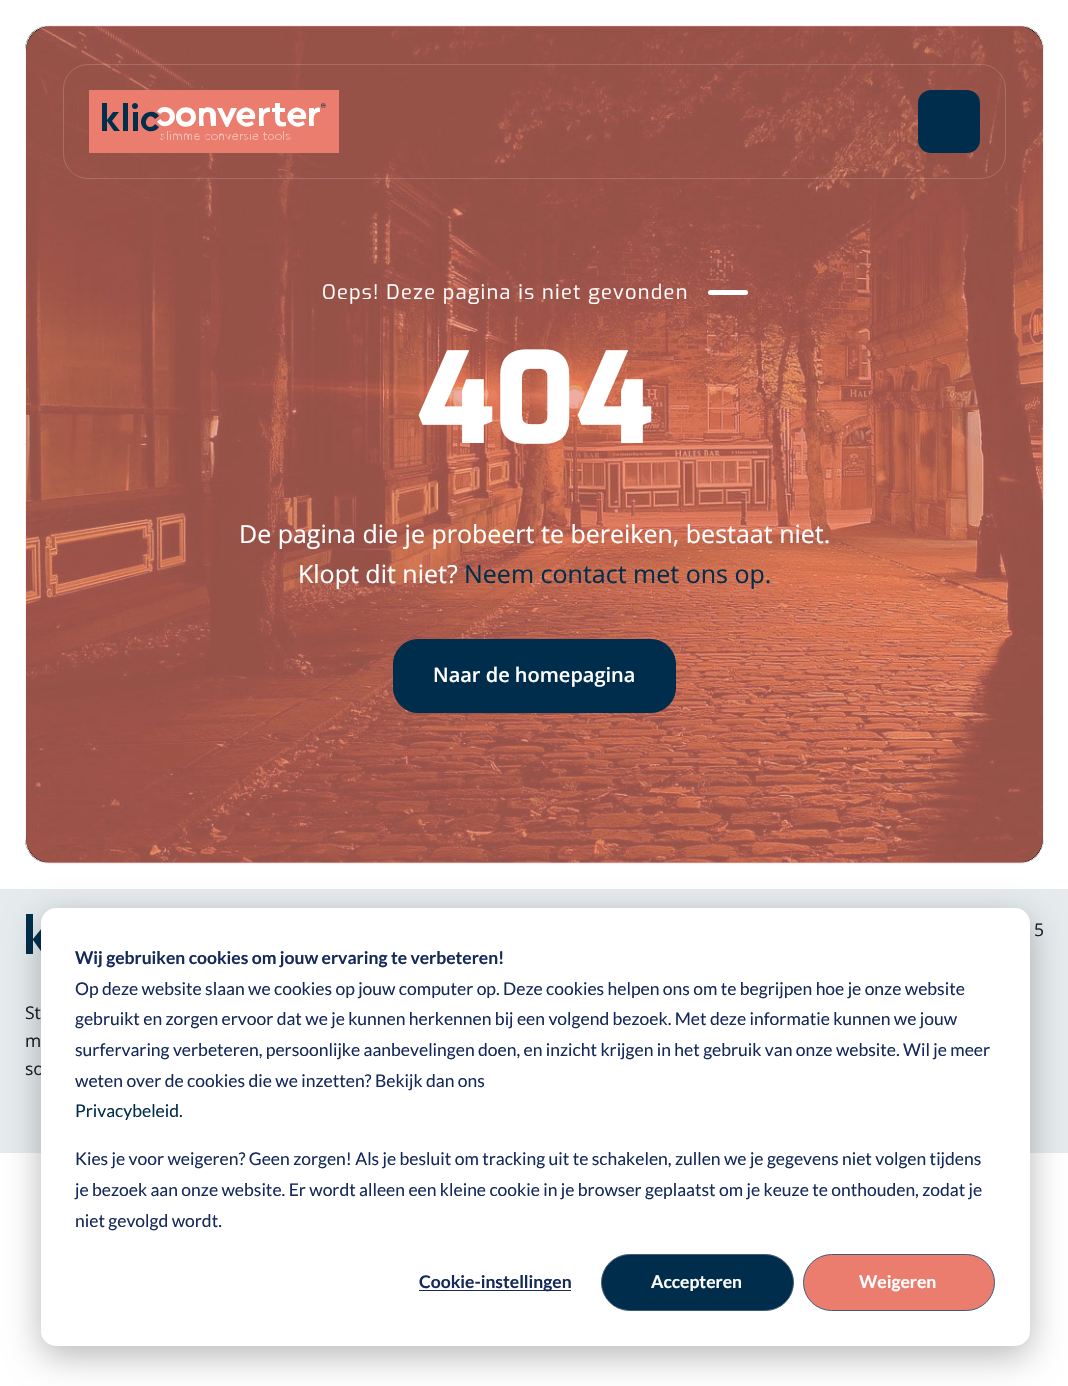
void draw(SkCanvas* canvas) {
	SkPaint fill;
	fill.setAntiAlias(true);
	auto makeFont = [&](const char* family, int weight, float size, bool italic = false) {
		SkFontStyle style(weight, SkFontStyle::kNormal_Width,
			italic ? SkFontStyle::kItalic_Slant : SkFontStyle::kUpright_Slant);
		SkFont result(fontMgr->matchFamilyStyle(family, style), size);
		result.setSubpixel(true);
		return result;
	};
	auto text = [&](const char* s, float x, float y, const SkFont& font) {
		canvas->drawString(s, x, y, font, fill);
	};
	auto spacedText = [&](const char* s, float x, float y, const SkFont& font, const SkPaint& ink, float letter, float word) {
		std::vector<SkGlyphID> glyphs(font.countText(s, strlen(s), SkTextEncoding::kUTF8));
		std::vector<float> xs(glyphs.size());
		font.textToGlyphs(s, strlen(s), SkTextEncoding::kUTF8, glyphs);
		font.getXPos(glyphs, xs, x);
		float extra = 0;
		for (size_t i = 0; i < glyphs.size(); i++) {
			xs[i] += extra;
			extra += letter + word * (glyphs[i] == font.unicharToGlyph(' '));
		}
		canvas->drawTextBlob(SkTextBlob::MakeFromPosHGlyphs(glyphs, xs, y, font), 0, 0, ink);
	};
	auto box = [&](float l, float t, float r, float b) {
		canvas->drawRect(SkRect::MakeLTRB(l, t, r, b), fill);
	};
	auto roundBox = [&](float l, float t, float r, float b, float radius) {
		canvas->drawRoundRect(SkRect::MakeLTRB(l, t, r, b), radius, radius, fill);
	};
	auto picture = [&](const char* path, float l, float t, float r, float b) {
		auto image = SkImages::DeferredFromEncodedData(SkData::MakeFromFileName(path));
		canvas->drawImageRect(image, SkRect::MakeLTRB(l, t, r, b), SkSamplingOptions());
	};
	canvas->clear(0xFFFFFFFF);
	picture("image0.png", 25, 26, 1044, 863);
	fill.setStyle(SkPaint::kStroke_Style);
	fill.setStrokeWidth(1);
	fill.setColor(0xFFF3F3F7);
	canvas->drawRoundRect(SkRect::MakeLTRB(25.5f, 25.5f, 1043.5f, 863.5f), 24.5f, 24.5f, fill);
	fill.setStyle(SkPaint::kFill_Style);
	fill.setColor(0xA3EB7E6F);
	roundBox(26, 26, 1043, 863, 25);
	fill.setStyle(SkPaint::kStroke_Style);
	fill.setColor(0x29FFFFFF);
	canvas->drawRoundRect(SkRect::MakeLTRB(63.5f, 64.5f, 1005.5f, 178.5f), 24.5f, 24.5f, fill);
	fill.setStyle(SkPaint::kFill_Style);
	fill.setColor(0xFFEB7D6E);
	box(89, 90, 339, 153);
	fill.setColor(0xFF002F4D);
	canvas->drawPath(SkPathBuilder(SkPathFillType::kEvenOdd).moveTo(132, 106).cubicTo(132, 102, 138, 102, 138, 106).cubicTo(138, 110, 132, 110, 132, 106).close().moveTo(120, 131).lineTo(114, 131).lineTo(107, 121).lineTo(107, 131).lineTo(102, 131).lineTo(102, 103).lineTo(107, 103).lineTo(107, 120).lineTo(113, 112).lineTo(119, 112).lineTo(112, 121).close().moveTo(123, 131).lineTo(123, 103).lineTo(128, 103).lineTo(128, 131).close().moveTo(141, 122).cubicTo(141, 112, 154, 108, 159, 116).lineTo(155, 119).cubicTo(149, 110, 141, 125, 150, 127).cubicTo(152, 127, 154, 126, 155, 124).lineTo(159, 127).cubicTo(154, 135, 141, 131, 141, 122).close().moveTo(133, 131).lineTo(133, 112).lineTo(138, 112).lineTo(138, 131).close().detach(), fill);
	fill.setColor(0xFFFFFFFF);
	canvas->drawPath(SkPathBuilder(SkPathFillType::kEvenOdd).moveTo(286, 122).lineTo(286, 126).cubicTo(274, 129, 275, 120, 275, 112).lineTo(272, 112).lineTo(272, 108).lineTo(275, 108).lineTo(275, 103).lineTo(280, 103).lineTo(280, 108).lineTo(285, 108).lineTo(285, 112).lineTo(280, 112).cubicTo(280, 119, 278, 123, 286, 122).close().moveTo(255, 119).lineTo(242, 119).cubicTo(243, 124, 249, 123, 252, 121).lineTo(254, 124).cubicTo(243, 133, 229, 117, 241, 109).cubicTo(243, 108, 246, 107, 248, 108).cubicTo(254, 109, 256, 114, 255, 119).close().moveTo(306, 119).lineTo(293, 119).cubicTo(294, 124, 300, 123, 303, 121).lineTo(305, 124).cubicTo(294, 133, 280, 117, 292, 109).cubicTo(294, 108, 297, 107, 299, 108).cubicTo(305, 109, 307, 114, 306, 119).close().moveTo(176, 117).cubicTo(176, 104, 196, 104, 196, 117).cubicTo(196, 130, 176, 130, 176, 117).close().moveTo(216, 115).lineTo(216, 126).lineTo(211, 126).lineTo(210, 114).cubicTo(210, 113, 209, 112, 208, 112).cubicTo(201, 111, 204, 123, 204, 126).lineTo(199, 126).lineTo(199, 108).lineTo(203, 108).lineTo(203, 109).cubicTo(208, 105, 216, 108, 216, 115).close().moveTo(270, 108).lineTo(270, 112).cubicTo(261, 112, 264, 120, 264, 126).lineTo(259, 126).lineTo(259, 108).lineTo(263, 108).lineTo(263, 110).cubicTo(265, 108, 268, 107, 270, 108).close().moveTo(320, 108).lineTo(320, 112).cubicTo(312, 112, 314, 120, 314, 126).lineTo(309, 126).lineTo(309, 108).lineTo(314, 108).lineTo(314, 110).cubicTo(315, 108, 318, 107, 320, 108).close().moveTo(231, 108).lineTo(237, 108).lineTo(228, 127).lineTo(226, 127).lineTo(217, 108).lineTo(222, 108).lineTo(227, 118).close().moveTo(242, 115).lineTo(250, 115).cubicTo(250, 110, 243, 111, 242, 115).close().moveTo(293, 115).lineTo(301, 115).cubicTo(301, 110, 294, 111, 293, 115).close().moveTo(191, 117).cubicTo(191, 111, 181, 111, 181, 117).cubicTo(181, 124, 191, 123, 191, 117).close().detach(), fill);
	fill.setColor(0xFF002D4B);
	canvas->drawPath(SkPathBuilder().moveTo(325.5f, 105.5f).cubicTo(325.5f, 102.5f, 321, 102.5f, 321, 105.5f).cubicTo(321, 108.5f, 325.5f, 108.5f, 325.5f, 105.5f).close().moveTo(325, 105.5f).cubicTo(325, 108, 321.5f, 108, 321.5f, 105.5f).cubicTo(321.5f, 103, 325, 103, 325, 105.5f).close().moveTo(324, 106).cubicTo(325.5f, 105, 323.5f, 104.5f, 322.5f, 104.5f).lineTo(322.5f, 106.5f).lineTo(323, 106.5f).lineTo(323, 106).lineTo(323.5f, 106).lineTo(324, 106.5f).lineTo(324.5f, 106.5f).close().moveTo(323, 105).cubicTo(324, 105, 324, 105.5f, 323, 105.5f).close().detach(), fill);
	fill.setColor(0xFFFFFFFF);
	canvas->drawPath(SkPathBuilder().moveTo(175, 116.5f).cubicTo(175, 107, 161.5f, 103.5f, 157, 111.5f).lineTo(160.5f, 114).cubicTo(164.5f, 108.5f, 172.5f, 113.5f, 169, 119.5f).cubicTo(168, 120.5f, 167, 121.5f, 166, 121.5f).cubicTo(163.5f, 122, 161.5f, 121, 160.5f, 119).lineTo(157, 121.5f).cubicTo(161.5f, 130, 175, 126, 175, 116.5f).close().detach(), fill);
	fill.setColor(0xFFF5BEB7);
	canvas->drawPath(SkPathBuilder(SkPathFillType::kEvenOdd).moveTo(167, 140).lineTo(167, 131).lineTo(168, 131).lineTo(168, 140).close().moveTo(283, 140).lineTo(283, 131).lineTo(284, 131).lineTo(284, 140).close().moveTo(169, 132).cubicTo(169, 131, 171, 131, 171, 132).cubicTo(171, 132, 169, 132, 169, 132).close().moveTo(250, 132).cubicTo(250, 131, 251, 131, 251, 132).cubicTo(251, 132, 250, 132, 250, 132).close().moveTo(267, 139).lineTo(267, 140).cubicTo(263, 141, 264, 137, 264, 135).lineTo(263, 135).lineTo(263, 134).lineTo(264, 134).lineTo(264, 132).lineTo(265, 132).lineTo(265, 134).lineTo(267, 134).lineTo(267, 135).lineTo(265, 135).cubicTo(265, 137, 264, 140, 267, 139).close().moveTo(211, 137).cubicTo(211, 133, 218, 133, 218, 137).cubicTo(218, 141, 211, 141, 211, 137).close().moveTo(268, 137).cubicTo(268, 133, 274, 133, 274, 137).cubicTo(274, 141, 268, 141, 268, 137).close().moveTo(275, 137).cubicTo(275, 133, 282, 133, 282, 137).cubicTo(282, 141, 275, 141, 275, 137).close().moveTo(205, 137).cubicTo(205, 134, 209, 133, 210, 135).lineTo(210, 136).cubicTo(207, 132, 203, 138, 207, 139).cubicTo(208, 139, 209, 139, 210, 138).lineTo(210, 139).cubicTo(209, 141, 205, 140, 205, 137).close().moveTo(160, 139).lineTo(161, 138).cubicTo(162, 139, 165, 140, 164, 138).cubicTo(163, 137, 160, 136, 161, 134).lineTo(163, 134).lineTo(165, 135).lineTo(164, 135).cubicTo(164, 135, 161, 134, 162, 136).cubicTo(163, 137, 166, 138, 164, 139).lineTo(162, 140).close().moveTo(182, 136).lineTo(182, 140).lineTo(181, 140).cubicTo(181, 139, 182, 135, 179, 135).cubicTo(178, 135, 178, 135, 178, 136).lineTo(178, 140).lineTo(177, 140).lineTo(177, 136).lineTo(176, 135).cubicTo(173, 133, 174, 139, 174, 140).lineTo(173, 140).lineTo(173, 134).lineTo(174, 134).cubicTo(175, 133, 177, 133, 177, 135).cubicTo(179, 133, 182, 134, 182, 136).close().moveTo(192, 136).lineTo(192, 140).lineTo(191, 140).cubicTo(191, 139, 192, 135, 190, 135).cubicTo(189, 135, 189, 135, 189, 136).lineTo(189, 140).lineTo(188, 140).lineTo(187, 136).lineTo(187, 135).cubicTo(184, 133, 185, 139, 185, 140).lineTo(184, 140).lineTo(184, 134).lineTo(185, 134).cubicTo(185, 133, 187, 133, 188, 135).cubicTo(190, 133, 192, 134, 192, 136).close().moveTo(200, 137).lineTo(195, 137).cubicTo(195, 139, 198, 140, 199, 138).lineTo(200, 139).cubicTo(199, 140, 198, 140, 197, 140).cubicTo(191, 139, 196, 130, 199, 135).close().moveTo(224, 136).lineTo(224, 140).lineTo(223, 140).lineTo(223, 136).lineTo(222, 135).cubicTo(219, 135, 220, 139, 220, 140).lineTo(219, 140).lineTo(219, 134).lineTo(220, 134).cubicTo(222, 133, 224, 134, 224, 136).close().moveTo(238, 137).lineTo(233, 137).cubicTo(233, 139, 236, 140, 237, 138).lineTo(238, 139).cubicTo(237, 140, 236, 140, 235, 140).cubicTo(229, 139, 234, 130, 238, 135).close().moveTo(244, 139).lineTo(244, 138).cubicTo(245, 139, 248, 140, 247, 138).cubicTo(246, 137, 243, 136, 244, 134).lineTo(246, 134).lineTo(248, 135).lineTo(247, 135).cubicTo(247, 135, 244, 134, 245, 136).cubicTo(246, 137, 250, 138, 248, 139).lineTo(246, 140).close().moveTo(258, 137).lineTo(253, 137).cubicTo(254, 139, 256, 140, 258, 138).lineTo(258, 139).cubicTo(257, 140, 256, 140, 255, 140).cubicTo(249, 139, 255, 130, 258, 135).close().moveTo(286, 139).lineTo(286, 138).cubicTo(287, 139, 290, 140, 289, 138).cubicTo(288, 137, 285, 136, 286, 134).lineTo(288, 134).lineTo(290, 135).cubicTo(289, 135, 286, 134, 287, 136).cubicTo(288, 137, 292, 138, 290, 139).lineTo(288, 140).close().moveTo(243, 134).lineTo(243, 135).cubicTo(240, 135, 241, 138, 241, 140).lineTo(240, 140).lineTo(240, 134).lineTo(241, 134).lineTo(241, 135).cubicTo(241, 134, 242, 134, 243, 134).close().moveTo(170, 140).lineTo(170, 134).lineTo(171, 134).lineTo(171, 140).close().moveTo(230, 134).lineTo(231, 134).lineTo(229, 140).lineTo(225, 134).lineTo(226, 134).lineTo(228, 138).close().moveTo(250, 140).lineTo(250, 134).lineTo(251, 134).lineTo(251, 140).close().moveTo(195, 136).lineTo(199, 136).cubicTo(199, 134, 196, 134, 195, 136).close().moveTo(233, 136).lineTo(237, 136).cubicTo(237, 134, 234, 134, 233, 136).close().moveTo(253, 136).lineTo(257, 136).cubicTo(257, 134, 254, 134, 253, 136).close().moveTo(217, 137).cubicTo(217, 134, 212, 134, 212, 137).cubicTo(212, 140, 217, 140, 217, 137).close().moveTo(273, 137).cubicTo(273, 134, 269, 134, 269, 137).cubicTo(269, 140, 273, 140, 273, 137).close().moveTo(281, 137).cubicTo(281, 134, 276, 134, 276, 137).cubicTo(276, 140, 281, 140, 281, 137).close().detach(), fill);
	fill.setColor(0xFF002D4B);
	roundBox(918, 90, 980, 153, 13);
	fill.setColor(0xFFFFFFFF);
	roundBox(708, 290, 748, 295, 2.5f);
	fill.setColor(0xFF002D4B);
	canvas->drawRoundRect(SkRect::MakeLTRB(393.5f, 639.5f, 675.5f, 712.5f), 24.5f, 24.5f, fill);
	fill.setStyle(SkPaint::kStroke_Style);
	canvas->drawRoundRect(SkRect::MakeLTRB(393.5f, 639.5f, 675.5f, 712.5f), 24.5f, 24.5f, fill);
	fill.setStyle(SkPaint::kFill_Style);
	fill.setColor(0xFFE6EBEE);
	box(0, 889, 1068, 1153);
	fill.setColor(0xFF002F4D);
	canvas->drawPath(SkPathBuilder(SkPathFillType::kEvenOdd).moveTo(69, 918).cubicTo(69, 913, 78, 913, 78, 918).cubicTo(78, 924, 69, 924, 69, 918).close().moveTo(52, 954).lineTo(43, 954).lineTo(33, 940).lineTo(33, 954).lineTo(26, 954).lineTo(26, 914).lineTo(33, 914).lineTo(33, 939).lineTo(42, 928).lineTo(51, 928).lineTo(41, 940).close().moveTo(55, 954).lineTo(55, 914).lineTo(63, 914).lineTo(63, 954).close().moveTo(81, 941).cubicTo(81, 928, 100, 922, 107, 934).lineTo(102, 938).cubicTo(93, 925, 81, 946, 94, 948).cubicTo(97, 949, 100, 947, 102, 945).lineTo(107, 948).cubicTo(100, 960, 81, 955, 81, 941).close().moveTo(70, 954).lineTo(70, 928).lineTo(77, 928).lineTo(77, 954).close().detach(), fill);
	fill.setColor(0x47000000);
	fill.setMaskFilter(SkMaskFilter::MakeBlur(kNormal_SkBlurStyle, 17.5f));
	canvas->drawRoundRect(SkRect::MakeLTRB(41, 918, 1030, 1356), 15, 15, fill);
	fill.setMaskFilter(nullptr);
	auto font1 = makeFont("Exo", 400, 20);
	fill.setColor(0xFFFFFFFF);
	spacedText("Oeps! Deze pagina is niet gevonden", 322, 299, font1, fill, 1.25f, 0);
	auto font2 = makeFont("Exo", 800, 125);
	text("404", 416, 443, font2);
	auto font3 = makeFont("Open Sans", 400, 25);
	text("De pagina die je probeert te bereiken, bestaat niet.", 239, 543, font3);
	text("Klopt dit niet?", 298, 583, font3);
	fill.setColor(0xFF002D4B);
	text("Neem contact met ons op.", 464, 583, font3);
	auto font4 = makeFont("Open Sans", 600, 20);
	fill.setColor(0xFFFFFFFF);
	text("Naar de homepagina", 433, 682, font4);
	auto font5 = makeFont("Open Sans", 400, 17.5f);
	fill.setColor(0xFF1C1D29);
	text("5", 1034, 936, font5);
	text("St", 25, 1019, font5);
	text("m", 25, 1047, font5);
	text("so", 25, 1075, font5);
	fill.setColor(0xFFFFFFFF);
	roundBox(41, 908, 1030, 1346, 15);
	auto font6 = makeFont("Lato", 700, 17.5f);
	fill.setColor(0xFF15295A);
	text("Wij gebruiken cookies om jouw ervaring te verbeteren!", 75, 964, font6);
	auto font7 = makeFont("Lato", 400, 17.5f);
	text("Op deze website slaan we cookies op jouw computer op. Deze cookies helpen ons om te begrijpen hoe je onze website", 75, 995, font7);
	text("gebruikt en zorgen ervoor dat we je kunnen herkennen bij een volgend bezoek. Met deze informatie kunnen we jouw", 75, 1025, font7);
	text("surfervaring verbeteren, persoonlijke aanbevelingen doen, en inzicht krijgen in het gebruik van onze website. Wil je meer", 75, 1056, font7);
	text("weten over de cookies die we inzetten? Bekijk dan ons", 75, 1087, font7);
	fill.setColor(0xFF002D4B);
	text("Privacybeleid", 75, 1117, font7);
	fill.setColor(0xFF15295A);
	text(".", 179, 1117, font7);
	text("Kies je voor weigeren? Geen zorgen! Als je besluit om tracking uit te schakelen, zullen we je gegevens niet volgen tijdens", 75, 1165, font7);
	text("je bezoek aan onze website. Er wordt alleen een kleine cookie in je browser geplaatst om je keuze te onthouden, zodat je", 75, 1196, font7);
	text("niet gevolgd wordt.", 75, 1227, font7);
	box(419, 1290, 571, 1291);
	text("Cookie-instellingen", 419, 1288, font6);
	fill.setColor(0xFF002D4B);
	canvas->drawRoundRect(SkRect::MakeLTRB(601.5f, 1254.5f, 793.5f, 1310.5f), 28, 28, fill);
	fill.setStyle(SkPaint::kStroke_Style);
	fill.setColor(0xFF425B76);
	canvas->drawRoundRect(SkRect::MakeLTRB(601.5f, 1254.5f, 793.5f, 1310.5f), 28, 28, fill);
	fill.setStyle(SkPaint::kFill_Style);
	fill.setColor(0xFFFFFFFF);
	text("Accepteren", 651, 1288, font6);
	fill.setColor(0xFFEB7D6E);
	canvas->drawRoundRect(SkRect::MakeLTRB(803.5f, 1254.5f, 994.5f, 1310.5f), 28, 28, fill);
	fill.setStyle(SkPaint::kStroke_Style);
	fill.setColor(0xFF425B76);
	canvas->drawRoundRect(SkRect::MakeLTRB(803.5f, 1254.5f, 994.5f, 1310.5f), 28, 28, fill);
	fill.setStyle(SkPaint::kFill_Style);
	fill.setColor(0xFFFFFFFF);
	text("Weigeren", 859, 1288, font6);
}
